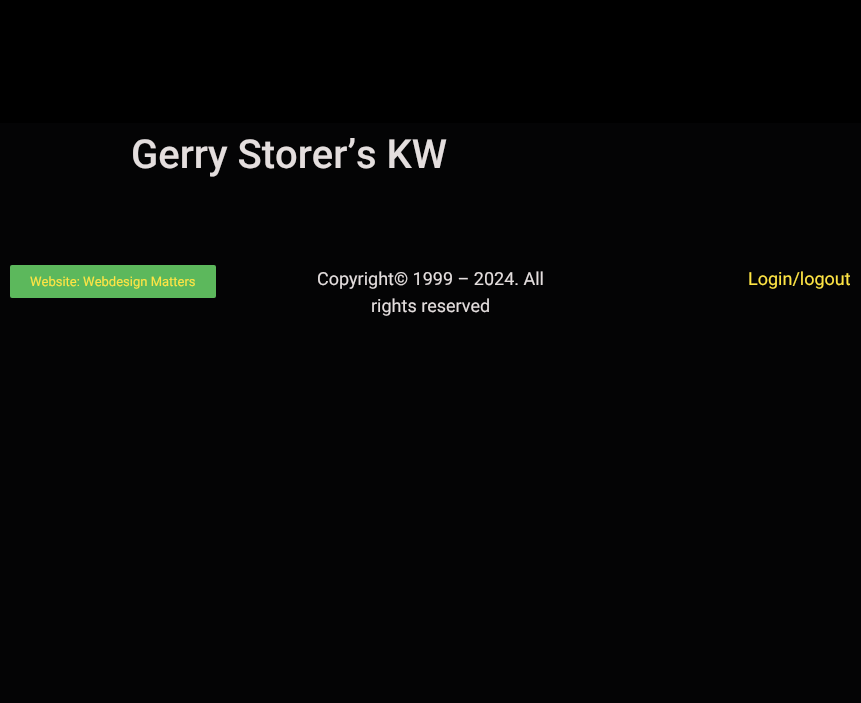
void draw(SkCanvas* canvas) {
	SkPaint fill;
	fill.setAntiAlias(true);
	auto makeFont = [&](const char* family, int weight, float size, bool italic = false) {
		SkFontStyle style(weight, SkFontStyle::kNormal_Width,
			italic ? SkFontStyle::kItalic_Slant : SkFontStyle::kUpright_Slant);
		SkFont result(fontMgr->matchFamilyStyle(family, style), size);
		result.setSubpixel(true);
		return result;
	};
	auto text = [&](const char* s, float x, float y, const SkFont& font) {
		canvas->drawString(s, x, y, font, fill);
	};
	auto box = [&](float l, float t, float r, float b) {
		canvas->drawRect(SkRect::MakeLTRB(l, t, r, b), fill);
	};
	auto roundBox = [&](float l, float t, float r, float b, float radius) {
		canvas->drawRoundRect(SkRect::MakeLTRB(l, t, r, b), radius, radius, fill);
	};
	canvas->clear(0xFF040405);
	fill.setColor(0xFF000000);
	box(0, 0, 861, 123);
	fill.setColor(0xFF5CB85C);
	roundBox(10, 265, 216, 298, 2);
	auto font1 = makeFont("Roboto", 500, 40);
	fill.setColor(0xFFE4DEDE);
	text("Gerry Storer’s KW", 131, 168, font1);
	auto font2 = makeFont("Roboto", 400, 13);
	fill.setColor(0xFFFFE544);
	text("Website: Webdesign Matters", 30, 286, font2);
	auto font3 = makeFont("Roboto", 400, 18);
	fill.setColor(0xFFE4DEDE);
	text("Copyright© 1999 – 2024. All", 317, 285, font3);
	text("rights reserved", 371, 312, font3);
	fill.setColor(0xFFFFE544);
	text("Login/logout", 748, 285, font3);
}
